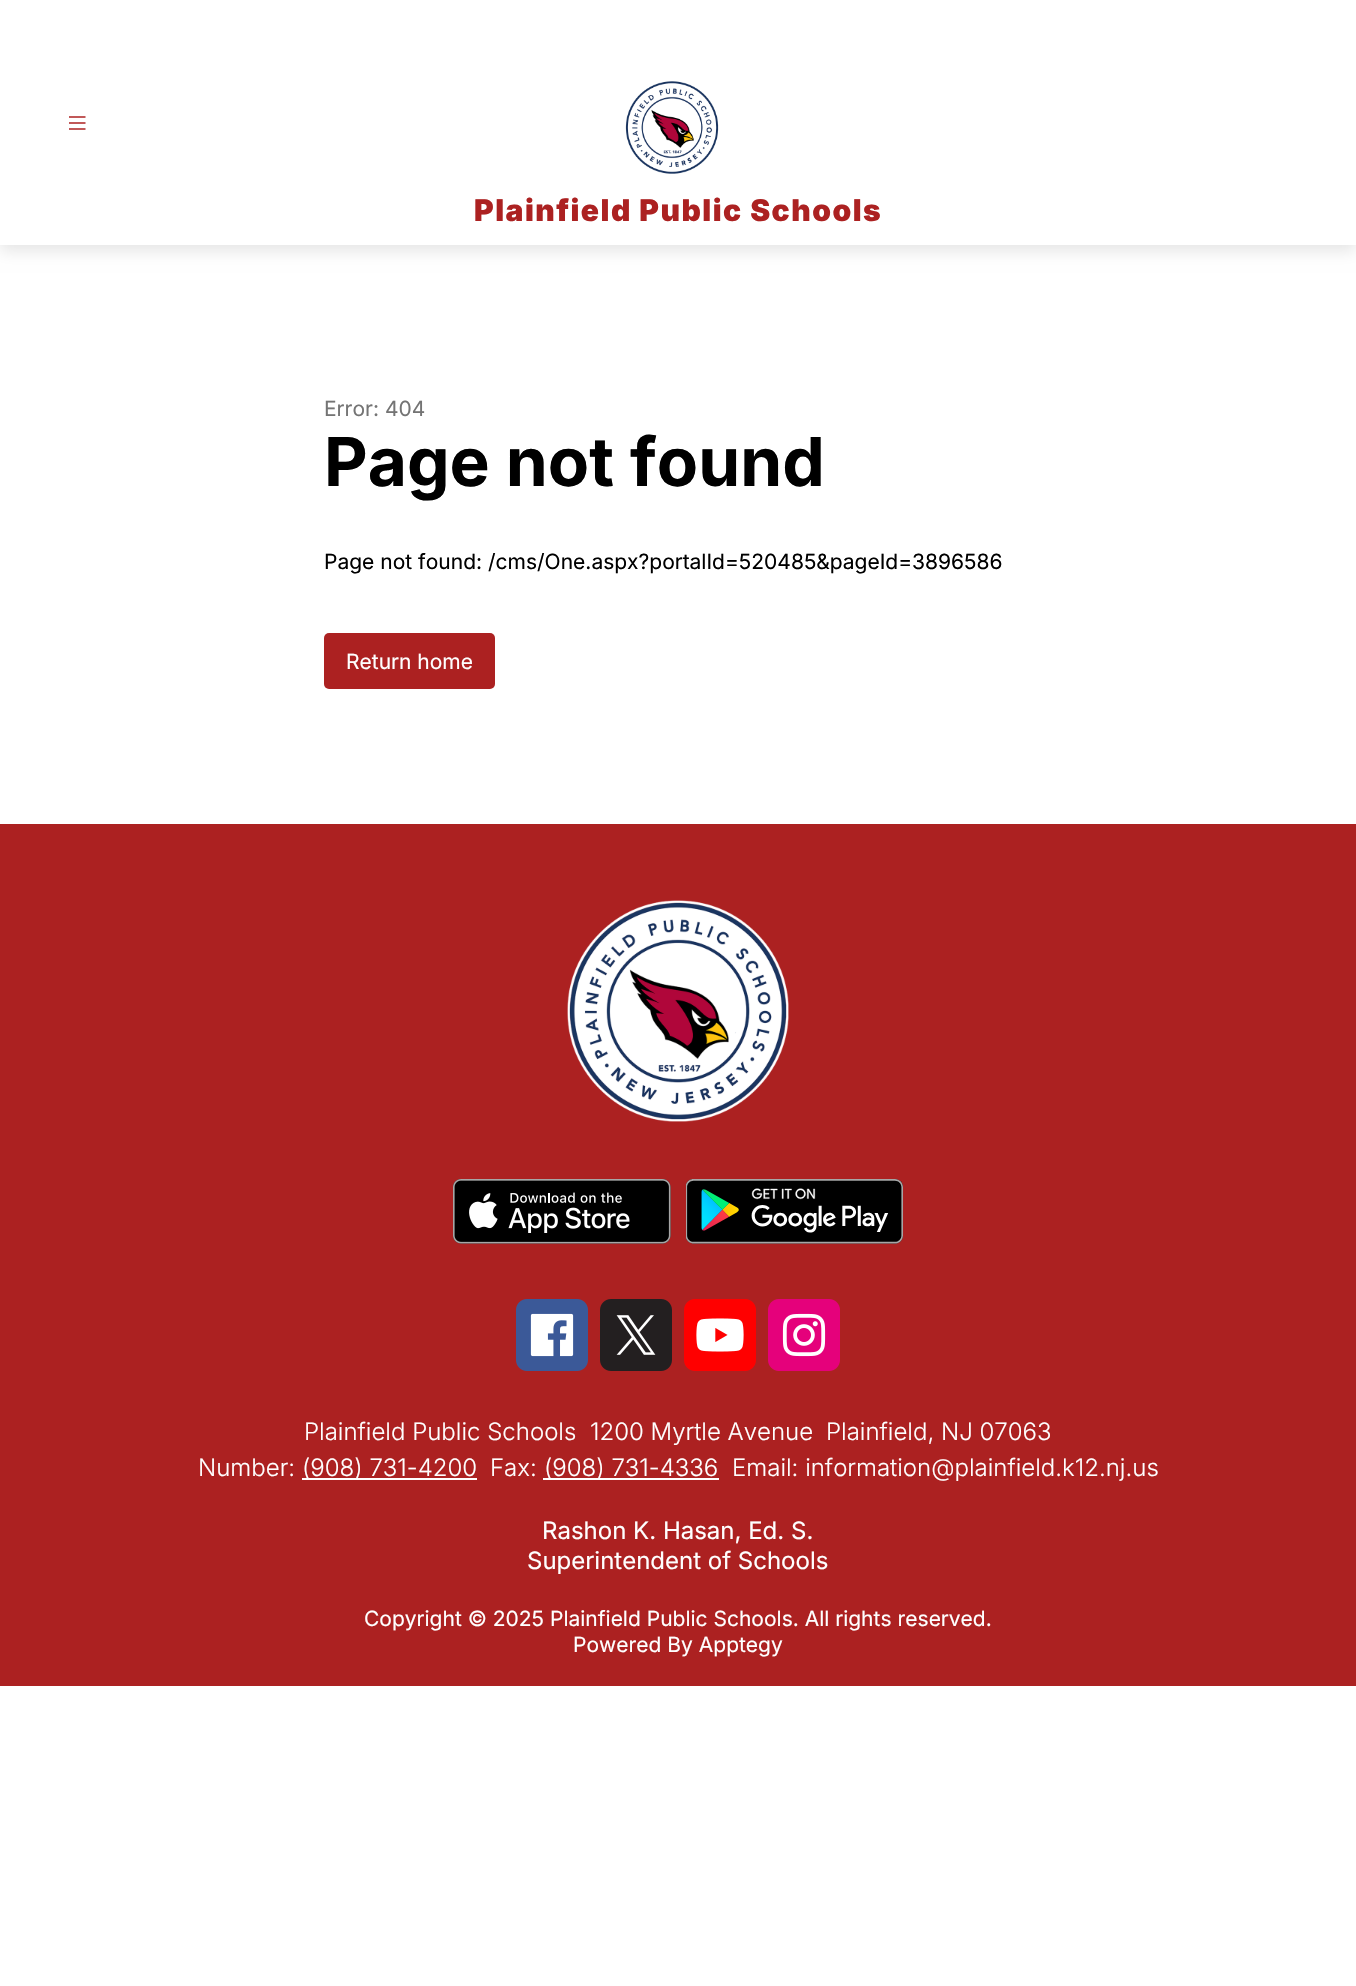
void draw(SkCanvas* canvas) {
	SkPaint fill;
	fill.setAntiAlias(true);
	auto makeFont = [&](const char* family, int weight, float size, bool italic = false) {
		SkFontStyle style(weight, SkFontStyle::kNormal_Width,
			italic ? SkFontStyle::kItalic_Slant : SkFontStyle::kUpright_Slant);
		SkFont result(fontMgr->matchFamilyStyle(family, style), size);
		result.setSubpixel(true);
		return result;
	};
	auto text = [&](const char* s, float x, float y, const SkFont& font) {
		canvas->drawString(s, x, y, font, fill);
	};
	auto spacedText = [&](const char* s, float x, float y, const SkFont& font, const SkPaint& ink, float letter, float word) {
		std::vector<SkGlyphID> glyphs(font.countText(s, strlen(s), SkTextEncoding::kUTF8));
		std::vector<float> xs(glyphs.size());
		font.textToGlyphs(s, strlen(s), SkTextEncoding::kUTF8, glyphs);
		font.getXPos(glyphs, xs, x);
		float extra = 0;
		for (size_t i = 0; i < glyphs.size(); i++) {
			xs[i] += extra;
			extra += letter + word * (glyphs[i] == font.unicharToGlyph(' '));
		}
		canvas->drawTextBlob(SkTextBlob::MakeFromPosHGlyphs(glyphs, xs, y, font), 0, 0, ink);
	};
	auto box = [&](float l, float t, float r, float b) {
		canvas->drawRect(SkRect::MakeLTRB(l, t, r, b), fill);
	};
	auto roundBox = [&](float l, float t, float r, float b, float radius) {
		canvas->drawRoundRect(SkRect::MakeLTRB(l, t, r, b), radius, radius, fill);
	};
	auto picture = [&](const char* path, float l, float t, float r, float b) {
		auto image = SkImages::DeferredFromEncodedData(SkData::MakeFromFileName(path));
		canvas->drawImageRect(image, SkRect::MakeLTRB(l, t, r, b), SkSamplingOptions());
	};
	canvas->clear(0xFFFFFFFF);
	fill.setColor(0x1A000000);
	fill.setMaskFilter(SkMaskFilter::MakeBlur(kNormal_SkBlurStyle, 7.5f));
	canvas->drawRect(SkRect::MakeLTRB(0, 6, 1356, 251), fill);
	fill.setMaskFilter(nullptr);
	fill.setColor(0xFFFFFFFF);
	box(0, 0, 1356, 245);
	picture("image0.png", 69, 116, 86, 130);
	picture("image1.png", 625, 81, 719, 174);
	fill.setColor(0xFFAC2121);
	roundBox(324, 633, 495, 689, 5);
	box(0, 824, 1356, 1686);
	picture("image2.png", 567, 900, 789, 1122);
	picture("image3.png", 453, 1179, 671, 1244);
	picture("image4.png", 686, 1179, 903, 1244);
	picture("image5.png", 516, 1299, 588, 1371);
	picture("image6.png", 600, 1299, 672, 1371);
	picture("image7.png", 684, 1299, 756, 1371);
	picture("image8.png", 768, 1299, 840, 1371);
	fill.setColor(0xFFFFFFFF);
	box(302, 1478, 477, 1480);
	box(543, 1478, 719, 1480);
	auto font1 = makeFont("Inter", 900, 30);
	fill.setColor(0xFFAC2121);
	spacedText("Plainfield Public Schools", 474, 221, font1, fill, 1.5f, 0);
	auto font2 = makeFont("Inter", 400, 21);
	fill.setColor(0xFF747474);
	text("Error: 404", 324, 416, font2);
	auto font3 = makeFont("Inter", 700, 67.5f);
	fill.setColor(0xFF000000);
	text("Page not found", 324, 486, font3);
	text("Page not found: /cms/One.aspx?portalId=520485&pageId=3896586", 324, 569, font2);
	fill.setColor(0xFFFFFFFF);
	text("Return home", 346, 669, font2);
	auto font4 = makeFont("Inter", 300, 24);
	text("Plainfield Public Schools", 304, 1440, font4);
	text("1200 Myrtle Avenue", 590, 1440, font4);
	text("Plainfield, NJ 07063", 826, 1440, font4);
	text("Number:", 198, 1476, font4);
	text("(908) 731-4200", 302, 1476, font4);
	text("Fax:", 490, 1476, font4);
	text("(908) 731-4336", 544, 1476, font4);
	text("Email: information@plainfield.k12.nj.us", 732, 1476, font4);
	auto font5 = makeFont("Inter", 400, 24);
	text("Rashon K. Hasan, Ed. S.", 542, 1539, font5);
	text("Superintendent of Schools", 527, 1569, font5);
	text("Copyright © 2025 Plainfield Public Schools. All rights reserved.", 364, 1626, font2);
	text("Powered By Apptegy", 573, 1652, font2);
}
